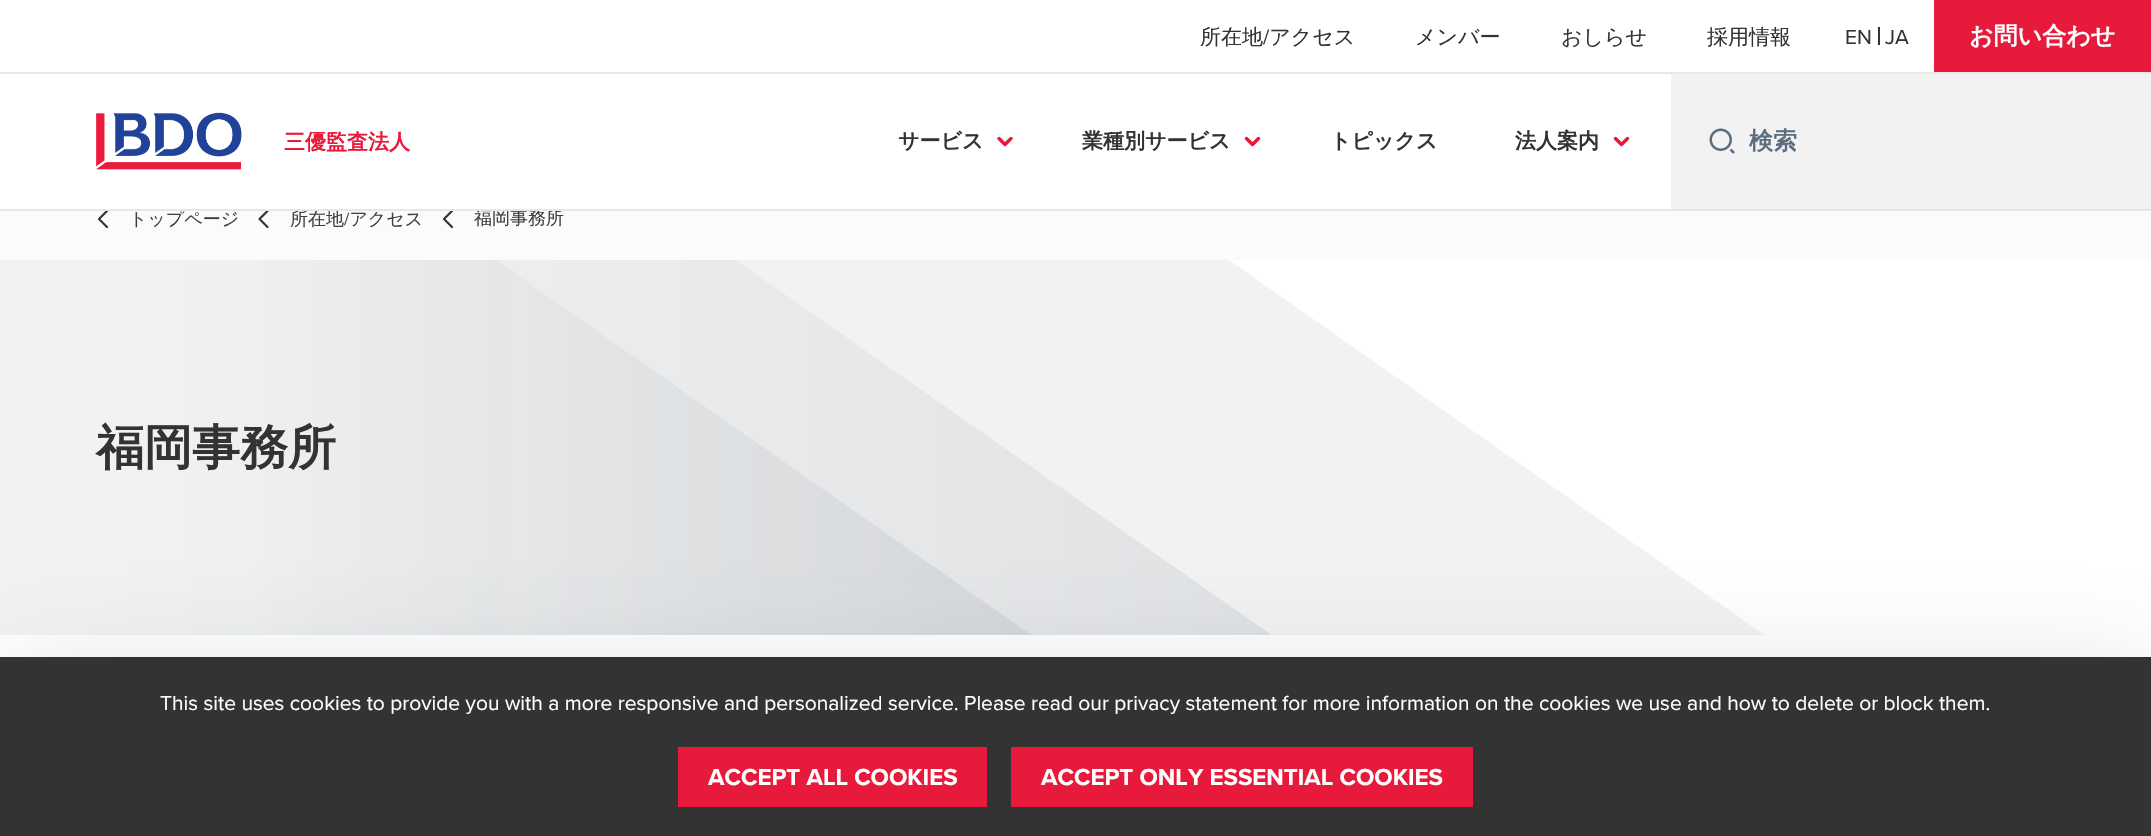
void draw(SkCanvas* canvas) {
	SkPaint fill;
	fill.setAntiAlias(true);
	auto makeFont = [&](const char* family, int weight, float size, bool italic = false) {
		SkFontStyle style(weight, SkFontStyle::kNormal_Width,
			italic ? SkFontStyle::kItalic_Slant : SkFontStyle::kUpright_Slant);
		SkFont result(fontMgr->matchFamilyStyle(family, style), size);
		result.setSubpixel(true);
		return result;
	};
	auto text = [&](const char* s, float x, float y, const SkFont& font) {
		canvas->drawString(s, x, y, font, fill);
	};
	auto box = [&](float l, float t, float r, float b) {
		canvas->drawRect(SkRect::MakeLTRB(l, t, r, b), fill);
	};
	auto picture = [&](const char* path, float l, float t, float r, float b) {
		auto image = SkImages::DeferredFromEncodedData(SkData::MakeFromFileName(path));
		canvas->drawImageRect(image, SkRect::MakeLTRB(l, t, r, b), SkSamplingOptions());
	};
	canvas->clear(0xFFFFFFFF);
	fill.setColor(0xFFE7E7E7);
	box(0, 72, 2151, 74);
	fill.setColor(0xFF333333);
	box(1878, 27, 1880, 45);
	{
		const SkColor colors[] = {0xFF5B6E7F, 0xFFE81A3B};
		const float stops[] = {0.5f, 0.5f};
		const SkPoint ends[] = {{1732, -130}, {2005, 195}};
		fill.setShader(SkGradientShader::MakeLinear(ends, colors, stops, 2, SkTileMode::kClamp));
		fill.setAlpha(255);
	}
	box(1934, 0, 2151, 72);
	picture("image0.png", 96, 112, 242, 170);
	fill.setStyle(SkPaint::kStroke_Style);
	fill.setStrokeWidth(3.5f);
	fill.setStrokeCap(SkPaint::kRound_Cap);
	fill.setStrokeJoin(SkPaint::kRound_Join);
	fill.setShader(nullptr);
	fill.setColor(0xFFE81A3B);
	canvas->drawPath(SkPathBuilder().moveTo(1011, 138.5f).lineTo(1005, 144.5f).lineTo(999, 138.5f).detach(), fill);
	canvas->drawPath(SkPathBuilder().moveTo(1258.5f, 138.5f).lineTo(1252.5f, 144.5f).lineTo(1246.5f, 138.5f).detach(), fill);
	canvas->drawPath(SkPathBuilder().moveTo(1627.5f, 138.5f).lineTo(1621.5f, 144.5f).lineTo(1615.5f, 138.5f).detach(), fill);
	fill.setStyle(SkPaint::kFill_Style);
	fill.setColor(0xFFF2F2F2);
	box(1671, 74, 2151, 209);
	picture("image1.png", 1709, 128, 1735, 154);
	fill.setColor(0xFFFAFBFD);
	box(0, 211, 2151, 260);
	fill.setStyle(SkPaint::kStroke_Style);
	fill.setStrokeWidth(2.2f);
	fill.setColor(0xFF333333);
	canvas->drawPath(SkPathBuilder().moveTo(107, 227).lineTo(99, 219).lineTo(107, 211).detach(), fill);
	canvas->drawPath(SkPathBuilder().moveTo(267.5f, 227).lineTo(259.5f, 219).lineTo(267.5f, 211).detach(), fill);
	canvas->drawPath(SkPathBuilder().moveTo(452, 227).lineTo(444, 219).lineTo(452, 211).detach(), fill);
	canvas->save();
	canvas->clipRect(SkRect::MakeLTRB(0, 260, 2043, 635));
	fill.setStyle(SkPaint::kFill_Style);
	fill.setColor(0xFFF2F2F2);
	canvas->drawPath(SkPathBuilder().moveTo(946, 62).lineTo(-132, 62).lineTo(-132, 830).lineTo(2043, 830).close().detach(), fill);
	{
		const SkColor colors[] = {0xFFF1F1F1, 0xFFDBDDE0, 0xFFD5D5D5};
		const float stops[] = {0, 1, 1};
		const SkPoint ends[] = {{268, 446}, {1550, 446}};
		fill.setShader(SkGradientShader::MakeLinear(ends, colors, stops, 3, SkTileMode::kClamp));
		fill.setAlpha(255);
	}
	canvas->drawPath(SkPathBuilder().moveTo(453, 62).lineTo(268, 62).lineTo(268, 830).lineTo(1550, 830).close().detach(), fill);
	{
		const SkColor colors[] = {0x005B6E7F, 0x265B6E7F, 0x26333333};
		const float stops[] = {0, 1, 1};
		const SkPoint ends[] = {{112, 446}, {1310, 446}};
		fill.setShader(SkGradientShader::MakeLinear(ends, colors, stops, 3, SkTileMode::kClamp));
		fill.setAlpha(255);
	}
	canvas->drawPath(SkPathBuilder().moveTo(213, 62).lineTo(112, 62).lineTo(112, 830).lineTo(1310, 830).close().detach(), fill);
	canvas->restore();
	fill.setShader(nullptr);
	fill.setColor(0x405B6E7F);
	fill.setMaskFilter(SkMaskFilter::MakeBlur(kNormal_SkBlurStyle, 60));
	canvas->drawRect(SkRect::MakeLTRB(0, 681, 2151, 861), fill);
	fill.setMaskFilter(nullptr);
	fill.setColor(0xFF333333);
	box(0, 657, 2151, 836);
	{
		const SkColor colors[] = {0xFF5B6E7F, 0xFFE81A3B};
		const float stops[] = {0.5f, 0.5f};
		const SkPoint ends[] = {{403, 557}, {768, 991}};
		fill.setShader(SkGradientShader::MakeLinear(ends, colors, stops, 2, SkTileMode::kClamp));
		fill.setAlpha(255);
	}
	box(678, 747, 987, 807);
	{
		const SkColor colors[] = {0xFF5B6E7F, 0xFFE81A3B};
		const float stops[] = {0.5f, 0.5f};
		const SkPoint ends[] = {{608, 459}, {1137, 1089}};
		fill.setShader(SkGradientShader::MakeLinear(ends, colors, stops, 2, SkTileMode::kClamp));
		fill.setAlpha(255);
	}
	box(1011, 747, 1473, 807);
	auto font1 = makeFont("WenQuanYi Zen Hei", 500, 21);
	fill.setShader(nullptr);
	fill.setColor(0xFF333333);
	text("所在地 アクセス", 1200, 44, font1);
	auto font2 = makeFont("Proxima Nova", 400, 21);
	text("/", 1263, 44, font2);
	text("メンバー", 1415, 44, font1);
	text("おしらせ", 1561, 44, font1);
	text("採用情報", 1707, 44, font1);
	text("EN", 1845, 44, font2);
	text("JA", 1885, 44, font2);
	auto font3 = makeFont("WenQuanYi Zen Hei", 700, 24);
	fill.setColor(0xFFFFFFFF);
	text("お問い合わせ", 1969, 44, font3);
	auto font4 = makeFont("WenQuanYi Zen Hei", 700, 21);
	fill.setColor(0xFFE81A3B);
	text("三優監査法人", 284, 149, font4);
	fill.setColor(0xFF333333);
	text("サービス", 898, 148, font4);
	text("業種別サービス", 1082, 148, font4);
	text("トピックス", 1330, 148, font4);
	text("法人案内", 1515, 148, font4);
	fill.setColor(0xFF5B6E7F);
	text("検索", 1749, 149, font3);
	auto font5 = makeFont("WenQuanYi Zen Hei", 500, 18);
	fill.setColor(0xFF404040);
	text("トップページ", 129, 225, font5);
	text("所在地 アクセス", 290, 225, font5);
	auto font6 = makeFont("Proxima Nova", 400, 18);
	text("/", 344, 225, font6);
	text("福岡事務所", 474, 224, font5);
	fill.setColor(0xFFE7E7E7);
	box(0, 209, 2151, 211);
	auto font7 = makeFont("WenQuanYi Zen Hei", 700, 48);
	fill.setColor(0xFF333333);
	text("福岡事務所", 96, 464, font7);
	fill.setColor(0xFFFFFFFF);
	text("This site uses cookies to provide you with a more responsive and personalized service. Please read our privacy statement for more information on the cookies we use and how to delete or block them.", 160, 710, font2);
	auto font8 = makeFont("Proxima Nova", 700, 24);
	text("ACCEPT ALL COOKIES", 708, 785, font8);
	text("ACCEPT ONLY ESSENTIAL COOKIES", 1041, 785, font8);
}
